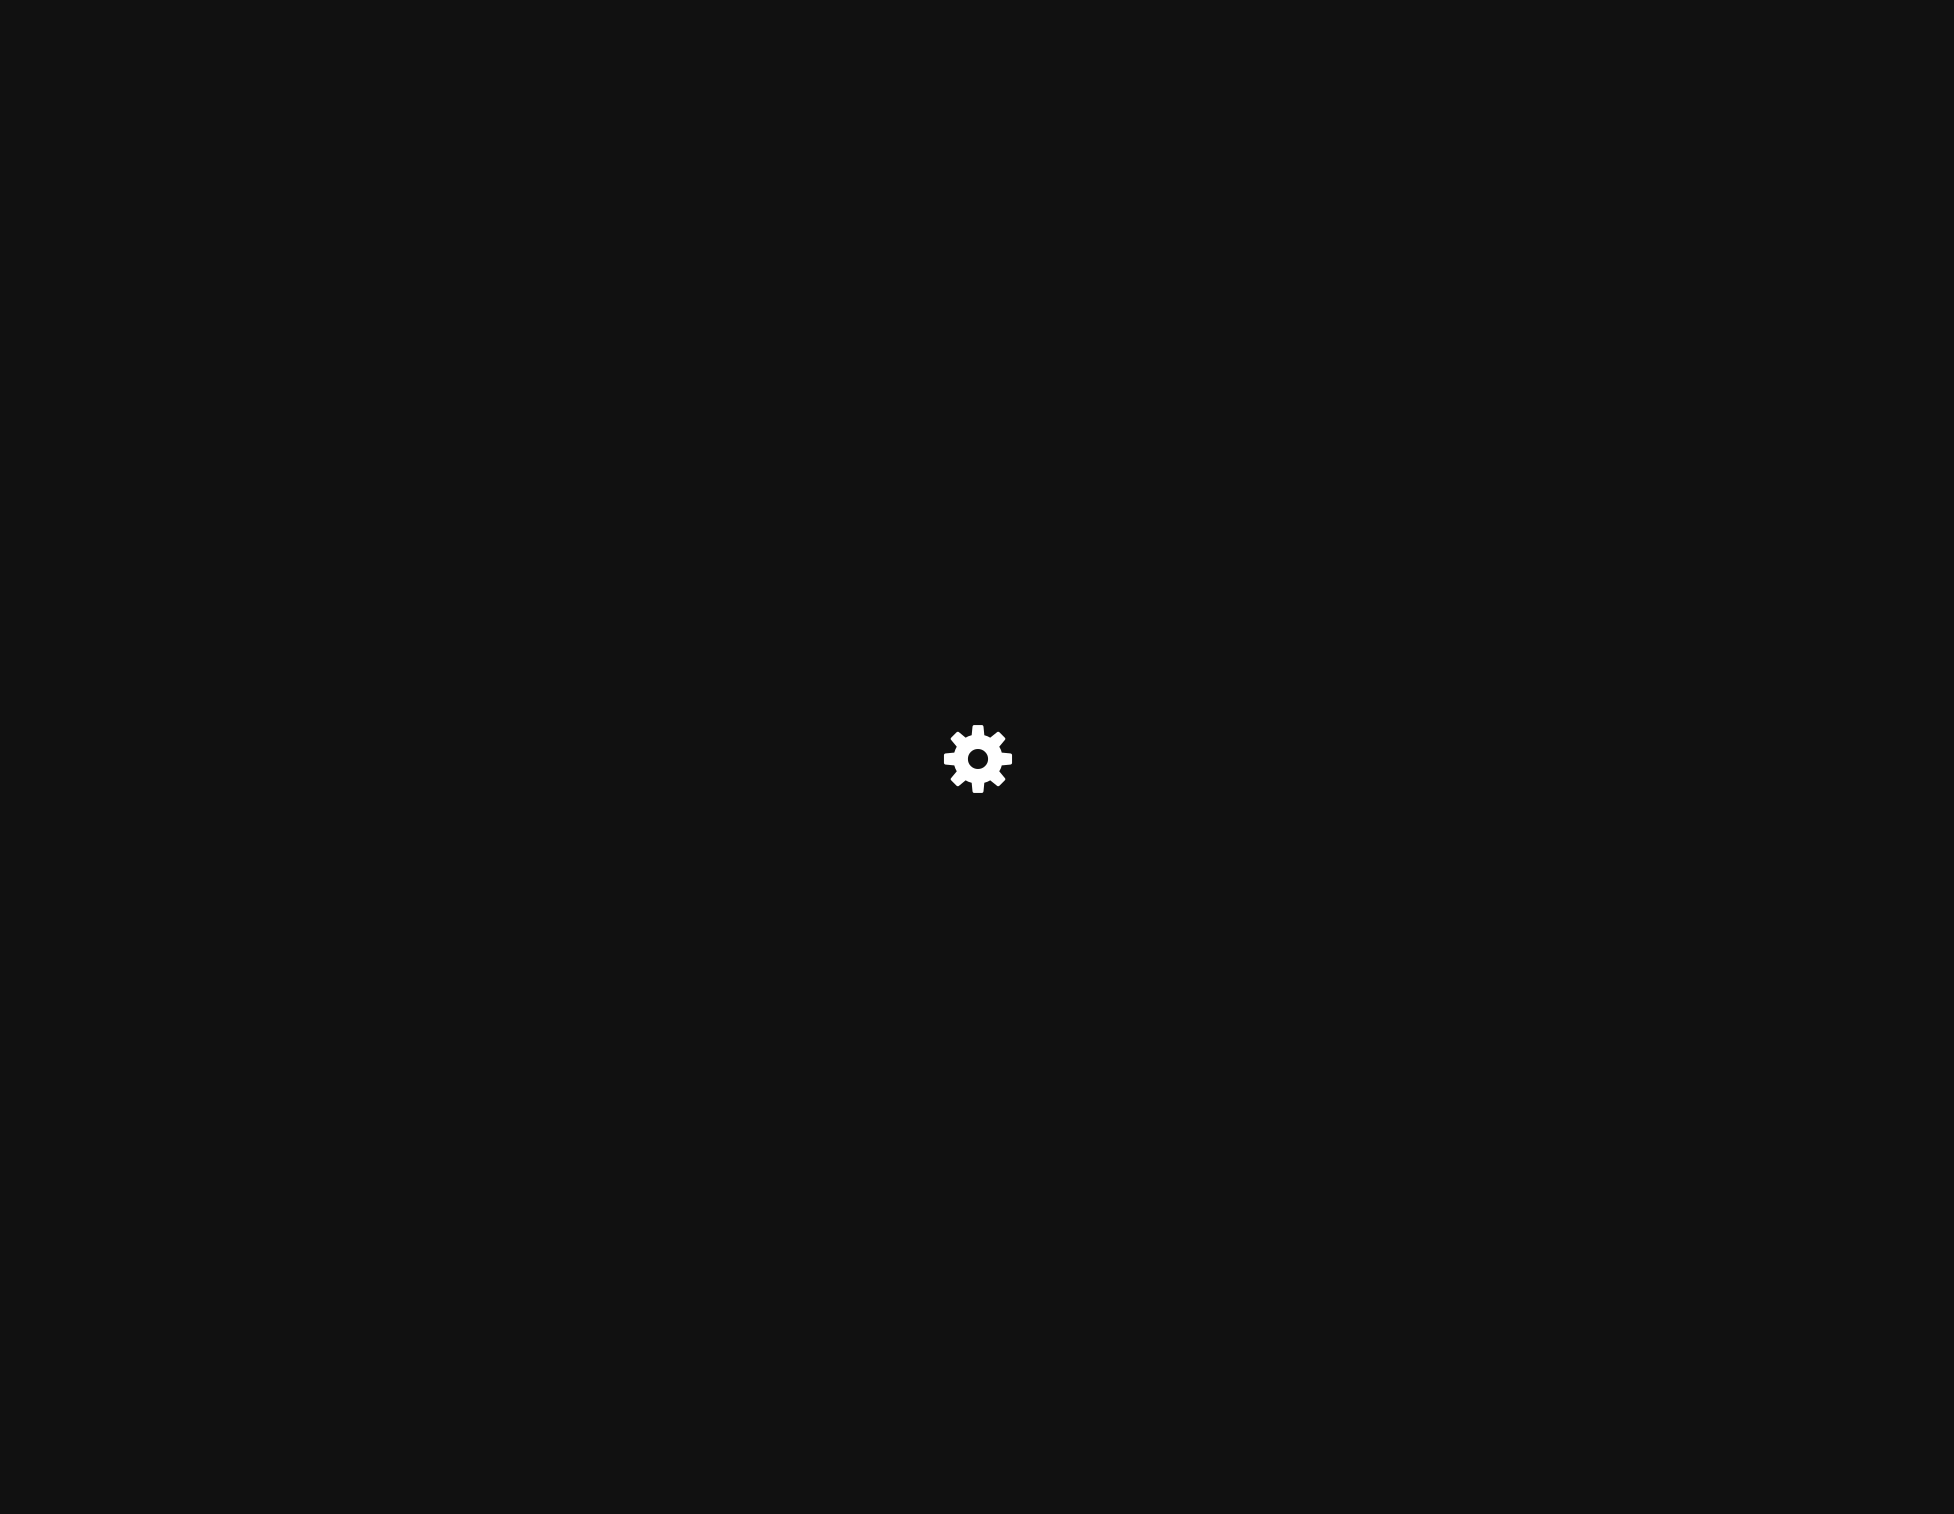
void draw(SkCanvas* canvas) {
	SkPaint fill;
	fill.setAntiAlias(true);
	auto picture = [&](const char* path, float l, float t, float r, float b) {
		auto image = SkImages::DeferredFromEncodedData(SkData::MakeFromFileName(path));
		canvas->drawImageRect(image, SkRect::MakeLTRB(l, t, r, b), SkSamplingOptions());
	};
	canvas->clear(0xFF111111);
	picture("image0.png", 943, 725, 1013, 793);
}
